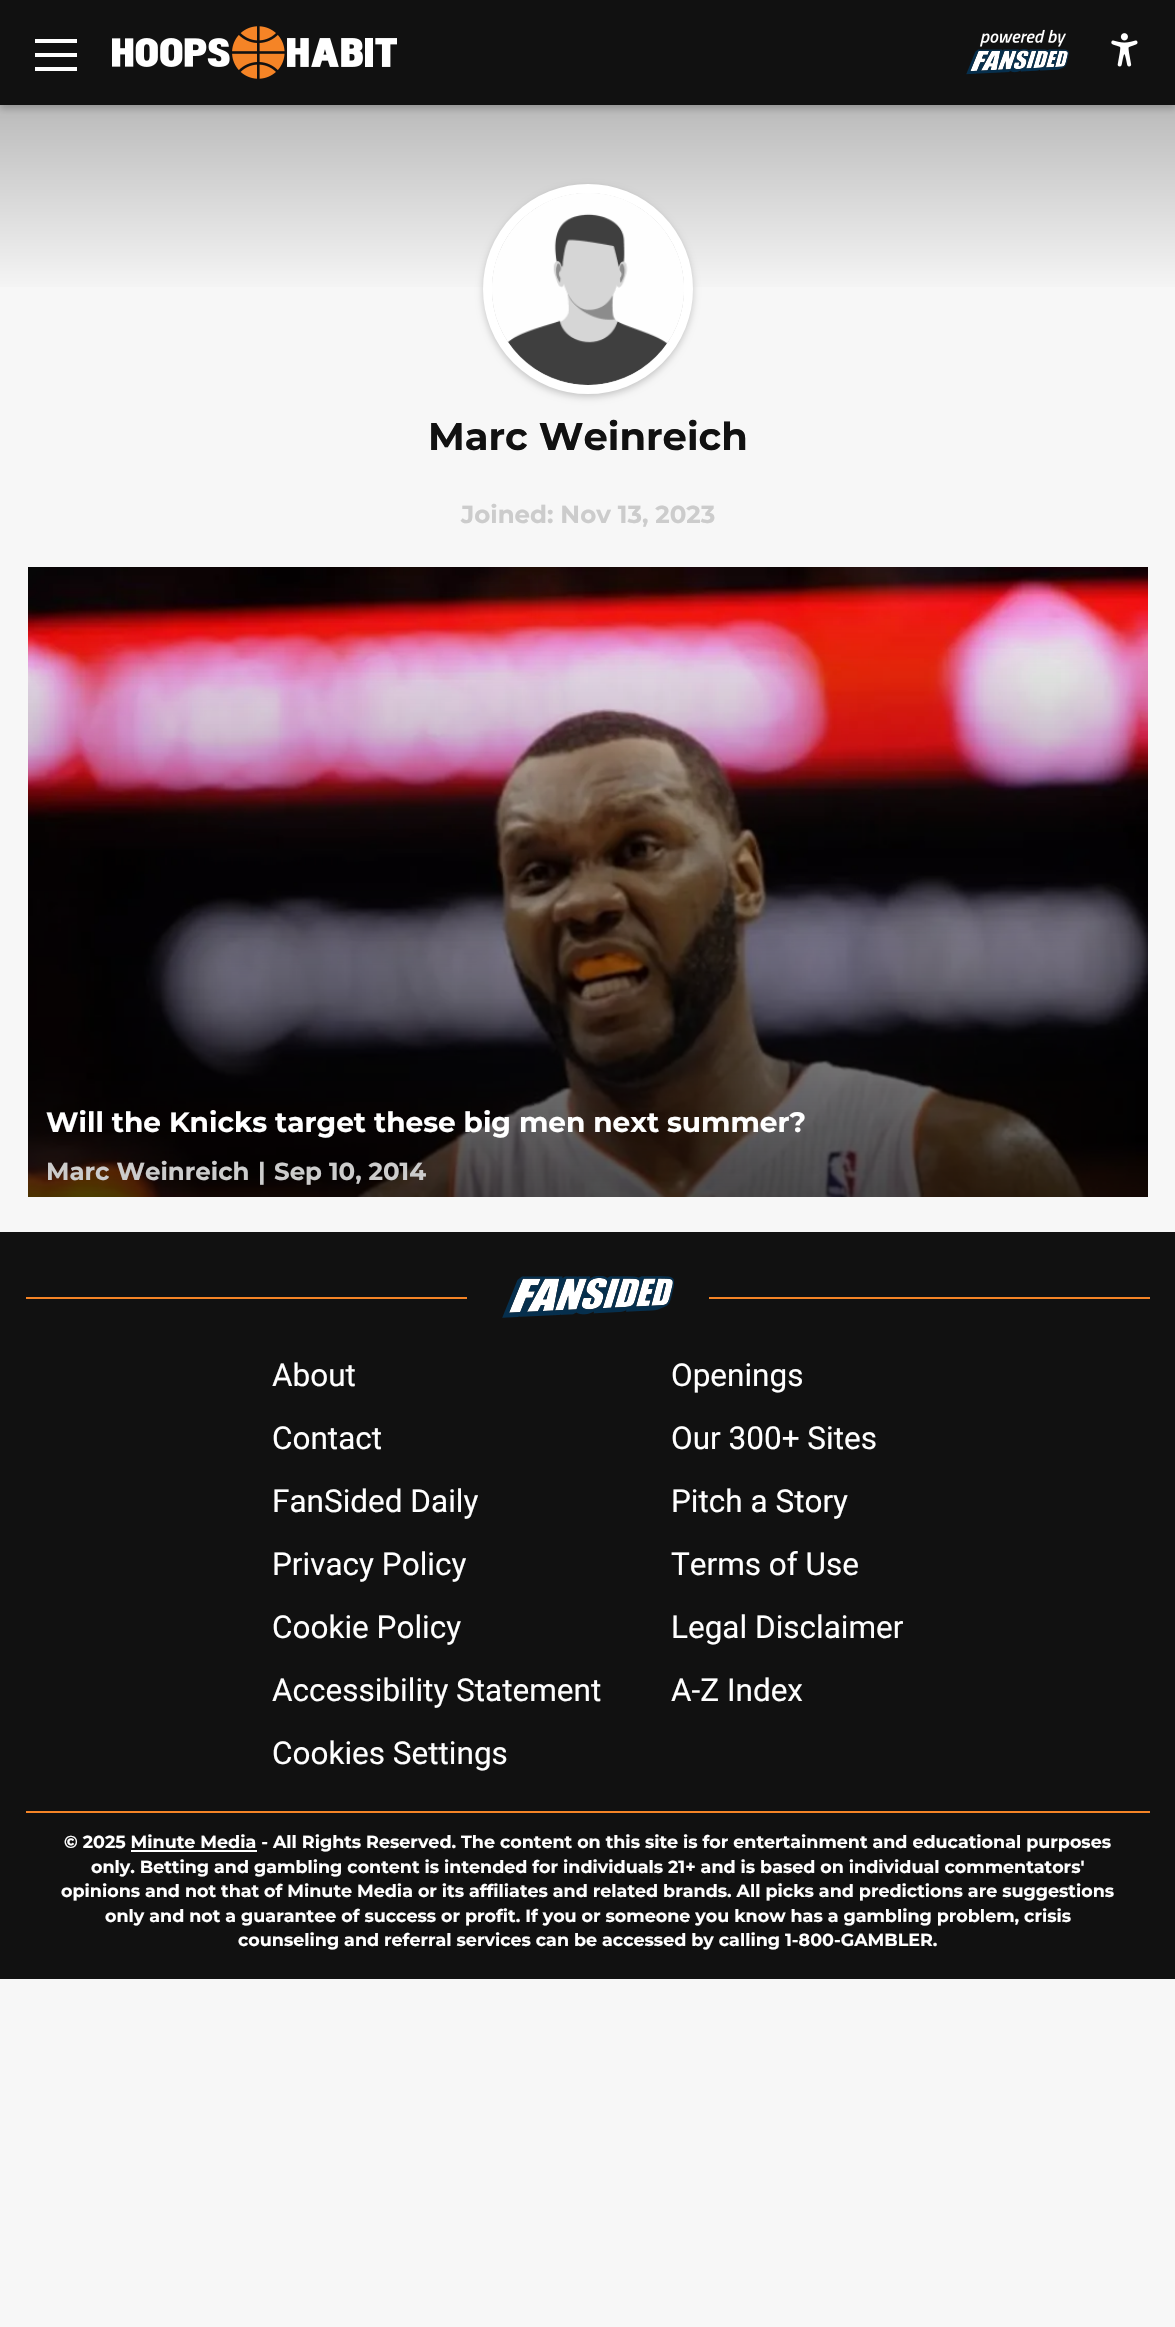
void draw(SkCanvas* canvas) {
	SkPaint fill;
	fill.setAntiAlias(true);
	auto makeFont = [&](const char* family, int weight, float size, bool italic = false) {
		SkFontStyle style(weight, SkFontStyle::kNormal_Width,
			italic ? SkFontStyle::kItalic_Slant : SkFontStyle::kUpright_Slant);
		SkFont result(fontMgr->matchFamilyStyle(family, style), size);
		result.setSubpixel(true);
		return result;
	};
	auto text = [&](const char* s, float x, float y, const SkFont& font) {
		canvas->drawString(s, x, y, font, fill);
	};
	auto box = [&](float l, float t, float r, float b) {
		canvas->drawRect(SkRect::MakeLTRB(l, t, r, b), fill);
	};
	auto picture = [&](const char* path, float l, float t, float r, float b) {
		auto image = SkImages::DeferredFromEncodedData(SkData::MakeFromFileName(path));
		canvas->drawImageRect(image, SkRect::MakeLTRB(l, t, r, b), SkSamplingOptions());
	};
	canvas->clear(0xFFF7F7F7);
	{
		const SkColor colors[] = {0xFFF8F8F8, 0xFF999999};
		const float stops[] = {0, 1};
		const SkPoint ends[] = {{588, 298}, {588, 0}};
		fill.setShader(SkGradientShader::MakeLinear(ends, colors, stops, 2, SkTileMode::kClamp));
		fill.setAlpha(255);
	}
	box(0, 105, 1175, 287);
	fill.setShader(nullptr);
	fill.setColor(0x33000000);
	fill.setMaskFilter(SkMaskFilter::MakeBlur(kNormal_SkBlurStyle, 3.5f));
	canvas->drawRect(SkRect::MakeLTRB(0, 4, 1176, 109), fill);
	fill.setMaskFilter(nullptr);
	fill.setColor(0xFF111111);
	box(0, 0, 1175, 105);
	fill.setColor(0xFFFFFFFF);
	box(35, 39, 77, 43);
	box(35, 53, 77, 57);
	box(35, 67, 77, 71);
	picture("image0.png", 112, 26, 397, 79);
	picture("image1.png", 966, 29, 1069, 75);
	picture("image2.png", 1111, 33, 1138, 67);
	fill.setColor(0x33000000);
	fill.setMaskFilter(SkMaskFilter::MakeBlur(kNormal_SkBlurStyle, 3.5f));
	canvas->drawRoundRect(SkRect::MakeLTRB(483, 187, 693, 397), 105, 105, fill);
	fill.setMaskFilter(nullptr);
	fill.setStyle(SkPaint::kStroke_Style);
	fill.setStrokeWidth(9);
	fill.setColor(0xFFFFFFFF);
	canvas->drawCircle(588, 289, 100.5f, fill);
	fill.setStyle(SkPaint::kFill_Style);
	fill.setColor(0xFFF7F7F7);
	canvas->drawCircle(588, 289, 96, fill);
	picture("image3.png", 492, 193, 684, 385);
	picture("image4.png", 28, 567, 1148, 1197);
	fill.setColor(0xFF111111);
	box(0, 1232, 1175, 1979);
	fill.setColor(0xFFF58426);
	box(26, 1297, 467, 1299);
	picture("image5.png", 502, 1276, 674, 1318);
	box(709, 1297, 1150, 1299);
	box(26, 1811, 1150, 1813);
	fill.setColor(0xFFFFFFFF);
	box(131, 1850, 257, 1852);
	auto font1 = makeFont("Montserrat", 700, 38.5f);
	fill.setColor(0xFF111111);
	text("Marc Weinreich", 428, 450, font1);
	auto font2 = makeFont("Montserrat", 700, 24.5f);
	fill.setColor(0xFFCCCCCC);
	text("Joined: Nov 13, 2023", 461, 523, font2);
	auto font3 = makeFont("Montserrat", 700, 28);
	fill.setColor(0xFFFFFFFF);
	text("Will the Knicks target these big men next summer?", 46, 1132, font3);
	fill.setColor(0xFFCCCCCC);
	text("Marc Weinreich", 46, 1180, font2);
	text("|", 258, 1180, font2);
	text("Sep 10, 2014", 274, 1180, font2);
	auto font4 = makeFont("Roboto", 400, 31.5f);
	fill.setColor(0xFFFFFFFF);
	text("About", 272, 1386, font4);
	text("Openings", 671, 1386, font4);
	text("Contact", 272, 1449, font4);
	text("Our 300+ Sites", 671, 1449, font4);
	text("FanSided Daily", 272, 1512, font4);
	text("Pitch a Story", 671, 1512, font4);
	text("Privacy Policy", 272, 1575, font4);
	text("Terms of Use", 671, 1575, font4);
	text("Cookie Policy", 272, 1638, font4);
	text("Legal Disclaimer", 671, 1638, font4);
	text("Accessibility Statement", 272, 1701, font4);
	text("A-Z Index", 671, 1701, font4);
	text("Cookies Settings", 272, 1764, font4);
	auto font5 = makeFont("Montserrat", 700, 17.5f);
	text("© 2025 Minute Media - All Rights Reserved. The content on this site is for entertainment and educational purposes", 64, 1848, font5);
	text("only. Betting and gambling content is intended for individuals 21+ and is based on individual commentators'", 91, 1873, font5);
	text("opinions and not that of Minute Media or its affiliates and related brands. All picks and predictions are suggestions", 61, 1897, font5);
	text("only and not a guarantee of success or profit. If you or someone you know has a gambling problem, crisis", 105, 1922, font5);
	text("counseling and referral services can be accessed by calling 1-800-GAMBLER.", 238, 1946, font5);
}
